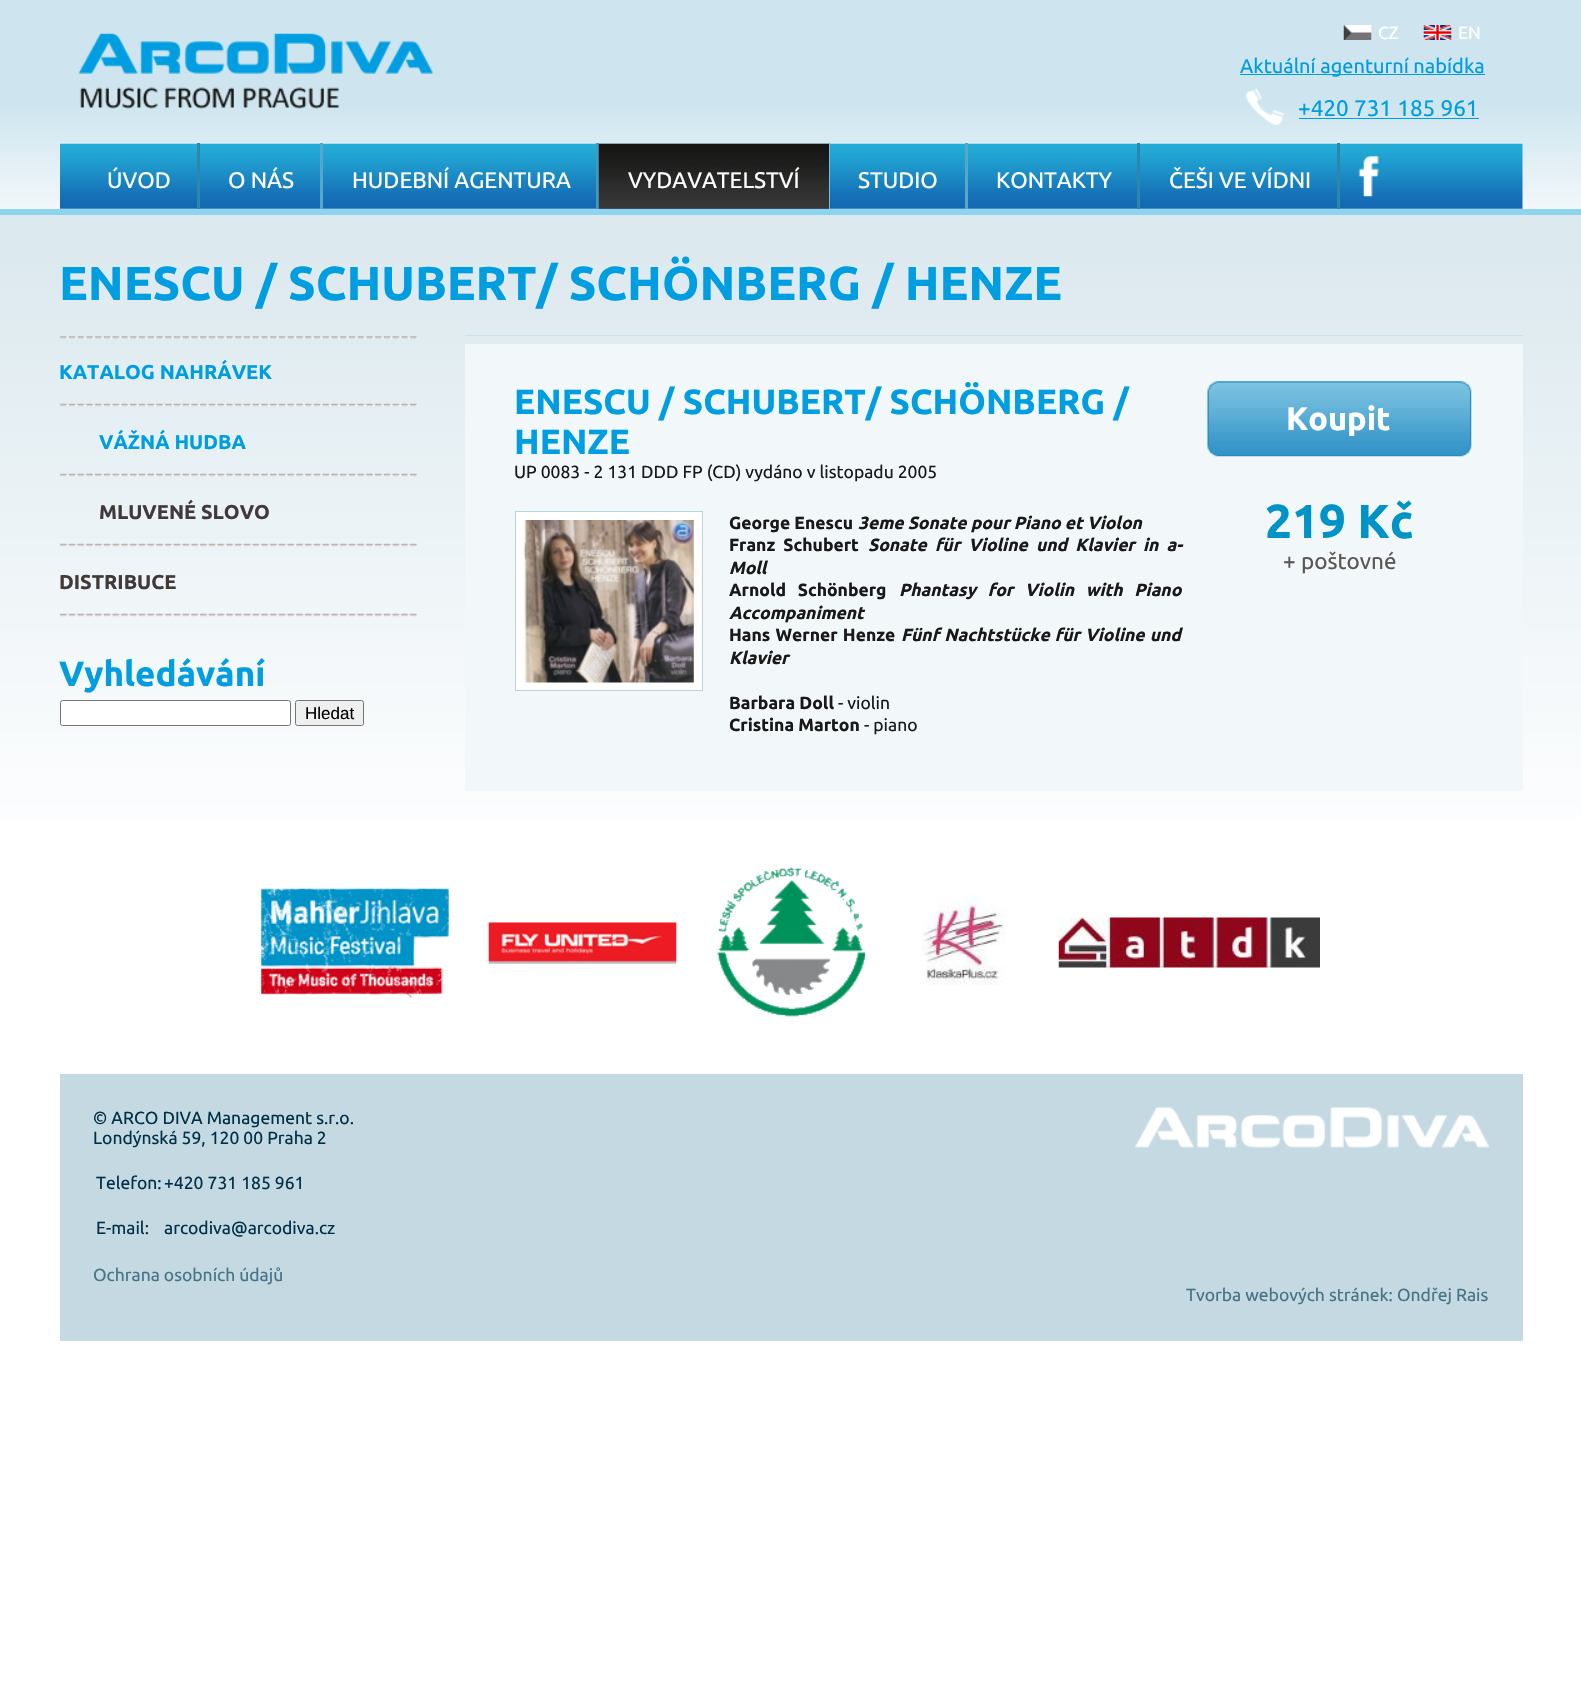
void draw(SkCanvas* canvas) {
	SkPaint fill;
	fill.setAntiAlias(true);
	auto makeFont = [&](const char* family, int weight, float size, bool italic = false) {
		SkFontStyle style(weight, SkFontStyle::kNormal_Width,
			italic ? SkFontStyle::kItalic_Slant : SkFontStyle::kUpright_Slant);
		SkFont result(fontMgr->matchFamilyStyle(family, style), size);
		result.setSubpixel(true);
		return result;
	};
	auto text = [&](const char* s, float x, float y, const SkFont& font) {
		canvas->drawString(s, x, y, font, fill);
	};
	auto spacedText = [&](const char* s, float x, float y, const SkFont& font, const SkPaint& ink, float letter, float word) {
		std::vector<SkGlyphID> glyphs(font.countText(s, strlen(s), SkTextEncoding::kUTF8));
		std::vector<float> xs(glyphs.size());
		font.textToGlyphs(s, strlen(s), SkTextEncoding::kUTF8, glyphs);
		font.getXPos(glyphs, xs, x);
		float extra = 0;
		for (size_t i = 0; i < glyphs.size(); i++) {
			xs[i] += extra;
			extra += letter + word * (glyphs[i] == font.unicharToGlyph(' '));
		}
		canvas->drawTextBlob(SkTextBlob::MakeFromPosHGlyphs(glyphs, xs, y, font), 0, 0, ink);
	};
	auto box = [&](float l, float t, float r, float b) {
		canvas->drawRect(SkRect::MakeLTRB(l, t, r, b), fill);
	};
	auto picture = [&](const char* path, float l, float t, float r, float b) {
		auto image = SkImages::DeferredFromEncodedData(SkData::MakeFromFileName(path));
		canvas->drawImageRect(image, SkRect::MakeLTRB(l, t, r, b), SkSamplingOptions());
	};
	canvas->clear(0xFFFFFFFF);
	{
		const SkColor colors[] = {0xFFCEE5EF, 0xFFF2F7FA};
		const float stops[] = {0.5f, 1};
		const SkPoint ends[] = {{791, 0}, {791, 209}};
		fill.setShader(SkGradientShader::MakeLinear(ends, colors, stops, 2, SkTileMode::kClamp));
		fill.setAlpha(255);
	}
	box(0, 0, 1581, 209);
	fill.setShader(nullptr);
	fill.setColor(0xFF8ED3EF);
	box(0, 209, 1581, 215);
	picture("image0.png", 60, 143, 1523, 209);
	picture("image1.png", 78, 33, 433, 109);
	picture("image2.png", 1343, 25, 1372, 40);
	picture("image3.png", 1423, 25, 1452, 40);
	fill.setColor(0xFF009EE0);
	box(1240, 74, 1485, 75);
	picture("image4.png", 1246, 88, 1284, 126);
	box(1299, 118, 1479, 119);
	fill.setColor(0xFF2E85AD);
	box(197, 143, 200, 209);
	fill.setColor(0xFF56A7CA);
	box(320, 143, 323, 209);
	fill.setColor(0xFF4599BE);
	box(596, 143, 599, 209);
	picture("image5.png", 598, 143, 830, 209);
	fill.setColor(0xFF74C0DF);
	box(829, 144, 830, 209);
	fill.setColor(0xFF56A7CA);
	box(965, 143, 968, 209);
	fill.setColor(0xFF2E85AD);
	box(1137, 143, 1140, 209);
	box(1337, 143, 1340, 209);
	picture("image6.png", 1358, 156, 1379, 197);
	{
		const SkColor colors[] = {0xFFDCE9EF, 0xFFFFFFFF};
		const float stops[] = {0.05f, 1};
		const SkPoint ends[] = {{791, 215}, {791, 865}};
		fill.setShader(SkGradientShader::MakeLinear(ends, colors, stops, 2, SkTileMode::kClamp));
		fill.setAlpha(255);
	}
	box(0, 215, 1581, 821);
	fill.setShader(nullptr);
	fill.setColor(0xFFCAE0EA);
	box(465, 335, 1523, 336);
	fill.setColor(0xFFF2F7FA);
	box(465, 344, 1523, 791);
	fill.setColor(0xFFFFFFFF);
	canvas->drawRect(SkRect::MakeLTRB(515.5f, 511.5f, 702.5f, 690.5f), fill);
	fill.setStyle(SkPaint::kStroke_Style);
	fill.setStrokeWidth(1);
	fill.setColor(0xFFBAD4DF);
	canvas->drawRect(SkRect::MakeLTRB(515.5f, 511.5f, 702.5f, 690.5f), fill);
	picture("image7.png", 523, 520, 694, 683);
	picture("image8.png", 1207, 381, 1472, 457);
	picture("image9.png", 60, 336, 418, 339);
	picture("image10.png", 60, 403, 418, 407);
	picture("image11.png", 60, 473, 418, 477);
	picture("image12.png", 60, 543, 418, 547);
	picture("image13.png", 60, 613, 418, 617);
	fill.setStyle(SkPaint::kFill_Style);
	fill.setColor(0xFFFFFFFF);
	canvas->drawRoundRect(SkRect::MakeLTRB(60.5f, 700.5f, 290.5f, 725.5f), 2, 2, fill);
	fill.setStyle(SkPaint::kStroke_Style);
	fill.setColor(0xFF767676);
	canvas->drawRoundRect(SkRect::MakeLTRB(60.5f, 700.5f, 290.5f, 725.5f), 2, 2, fill);
	fill.setStyle(SkPaint::kFill_Style);
	fill.setColor(0xFFEFEFEF);
	canvas->drawRoundRect(SkRect::MakeLTRB(295.5f, 700.5f, 363.5f, 725.5f), 2, 2, fill);
	fill.setStyle(SkPaint::kStroke_Style);
	fill.setColor(0xFF767676);
	canvas->drawRoundRect(SkRect::MakeLTRB(295.5f, 700.5f, 363.5f, 725.5f), 2, 2, fill);
	picture("image14.png", 261, 888, 449, 998);
	picture("image15.png", 488, 922, 677, 964);
	picture("image16.png", 717, 867, 866, 1017);
	picture("image17.png", 922, 895, 1006, 985);
	picture("image18.png", 1058, 917, 1320, 968);
	fill.setStyle(SkPaint::kFill_Style);
	fill.setColor(0xFFC4D9E2);
	box(60, 1074, 1523, 1341);
	picture("image19.png", 1135, 1107, 1489, 1148);
	auto font1 = makeFont("Ubuntu", 400, 17.5f);
	fill.setColor(0xFFFFFFFF);
	text("CZ", 1378, 39, font1);
	text("EN", 1458, 39, font1);
	auto font2 = makeFont("Ubuntu", 400, 20);
	fill.setColor(0xFF009EE0);
	text("Aktuální agenturní nabídka", 1240, 73, font2);
	auto font3 = makeFont("Ubuntu", 400, 22.5f);
	text("+420 731 185 961", 1298, 116, font3);
	fill.setColor(0xFFFFFFFF);
	text("ÚVOD", 107, 188, font3);
	text("O NÁS", 228, 188, font3);
	text("HUDEBNÍ AGENTURA", 352, 188, font3);
	text("VYDAVATELSTVÍ", 628, 188, font3);
	text("STUDIO", 858, 188, font3);
	text("KONTAKTY", 996, 188, font3);
	text("ČEŠI VE VÍDNI", 1169, 188, font3);
	auto font4 = makeFont("Ubuntu", 700, 47.5f);
	fill.setColor(0xFF009EE0);
	text("ENESCU / SCHUBERT/ SCHÖNBERG / HENZE", 59, 300, font4);
	auto font5 = makeFont("Ubuntu", 700, 35);
	text("ENESCU / SCHUBERT/ SCHÖNBERG /", 514, 414, font5);
	text("HENZE", 514, 454, font5);
	fill.setColor(0xFF191919);
	text("UP 0083 - 2 131 DDD FP (CD) vydáno v listopadu 2005", 514, 478, font1);
	auto font6 = makeFont("Ubuntu", 700, 17.5f);
	text("George Enescu", 729, 529, font6);
	auto font7 = makeFont("Ubuntu", 700, 17.5f, true);
	text("3eme Sonate pour Piano et Violon", 858, 529, font7);
	spacedText("Franz Schubert", 729, 551, font6, fill, 0, 4);
	spacedText("Sonate für Violine und Klavier in a-", 868, 551, font7, fill, 0, 4);
	text("Moll", 729, 574, font7);
	spacedText("Arnold Schönberg", 729, 596, font6, fill, 0, 7.5f);
	spacedText("Phantasy for Violin with Piano", 899, 596, font7, fill, 0, 7.5f);
	text("Accompaniment", 729, 619, font7);
	spacedText("Hans Werner Henze", 729, 641, font6, fill, 0, 1);
	spacedText("Fünf Nachtstücke für Violine und", 901, 641, font7, fill, 0, 1);
	text("Klavier", 729, 664, font7);
	text("Barbara Doll", 729, 709, font6);
	text("- violin", 838, 709, font1);
	text("Cristina Marton", 729, 731, font6);
	text("- piano", 864, 731, font1);
	auto font8 = makeFont("Ubuntu", 700, 32.5f);
	fill.setColor(0xFFFFFFFF);
	text("Koupit", 1286, 430, font8);
	fill.setColor(0xFF0093C7);
	text("219 Kč", 1265, 538, font4);
	fill.setColor(0xFF5C5654);
	text("+ poštovné", 1283, 569, font3);
	auto font9 = makeFont("Ubuntu", 700, 20);
	fill.setColor(0xFF009EE0);
	text("KATALOG NAHRÁVEK", 59, 379, font9);
	text("VÁŽNÁ HUDBA", 99, 449, font9);
	fill.setColor(0xFF413A38);
	text("MLUVENÉ SLOVO", 99, 519, font9);
	text("DISTRIBUCE", 59, 589, font9);
	fill.setColor(0xFF009EE0);
	text("Vyhledávání", 59, 686, font5);
	auto font10 = makeFont("Liberation Sans", 400, 17);
	fill.setColor(0xFF000000);
	text("Hledat", 305, 719, font10);
	fill.setColor(0xFF003048);
	text("© ARCO DIVA Management s.r.o.", 93, 1124, font1);
	text("Londýnská 59, 120 00 Praha 2", 93, 1144, font1);
	text("Telefon:", 96, 1189, font1);
	text("+420 731 185 961", 164, 1189, font1);
	text("E-mail:", 96, 1234, font1);
	text("arcodiva@arcodiva.cz", 164, 1234, font1);
	fill.setColor(0xFF487387);
	text("Ochrana osobních údajů", 93, 1281, font1);
	text("Tvorba webových stránek: Ondřej Rais", 1186, 1301, font1);
}
